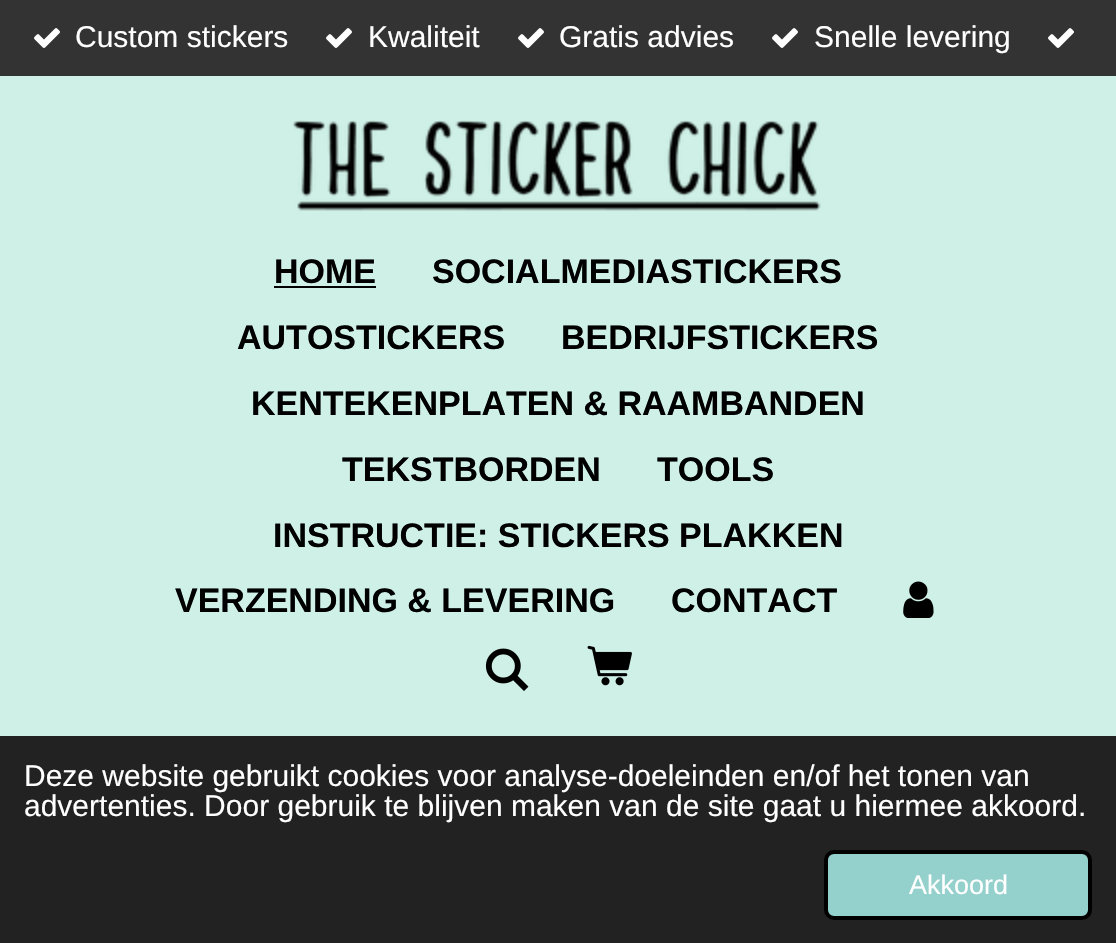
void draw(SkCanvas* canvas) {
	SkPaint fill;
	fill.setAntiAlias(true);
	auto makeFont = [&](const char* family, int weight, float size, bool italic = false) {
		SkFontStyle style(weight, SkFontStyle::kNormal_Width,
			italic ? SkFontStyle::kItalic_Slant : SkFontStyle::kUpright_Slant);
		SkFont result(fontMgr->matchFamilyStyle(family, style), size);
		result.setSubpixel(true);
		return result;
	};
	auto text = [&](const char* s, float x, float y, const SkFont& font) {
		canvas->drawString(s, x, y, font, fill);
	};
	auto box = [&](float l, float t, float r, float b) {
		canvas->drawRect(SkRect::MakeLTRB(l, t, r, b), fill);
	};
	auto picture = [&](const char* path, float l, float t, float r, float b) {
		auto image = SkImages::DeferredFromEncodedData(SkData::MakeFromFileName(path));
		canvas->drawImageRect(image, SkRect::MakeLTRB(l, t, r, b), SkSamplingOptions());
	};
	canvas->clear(0xFF333333);
	picture("image0.png", 34, 28, 60, 48);
	picture("image0.png", 326, 28, 352, 48);
	picture("image0.png", 518, 28, 544, 48);
	picture("image0.png", 772, 28, 798, 48);
	picture("image0.png", 1048, 28, 1074, 48);
	fill.setColor(0xFFCEF0E6);
	box(0, 76, 1116, 736);
	picture("image1.png", 293, 120, 821, 211);
	fill.setColor(0xFF000000);
	box(274, 286, 376, 288);
	picture("image2.png", 903, 581, 934, 618);
	picture("image3.png", 485, 648, 529, 691);
	picture("image4.png", 587, 645, 632, 686);
	fill.setColor(0xFF222222);
	box(0, 736, 1116, 943);
	fill.setColor(0xFF95D1CC);
	canvas->drawRoundRect(SkRect::MakeLTRB(826, 852, 1090, 918), 8, 8, fill);
	fill.setStyle(SkPaint::kStroke_Style);
	fill.setStrokeWidth(4);
	fill.setColor(0xFF000000);
	canvas->drawRoundRect(SkRect::MakeLTRB(826, 852, 1090, 918), 8, 8, fill);
	auto font1 = makeFont("Liberation Sans", 400, 30);
	fill.setStyle(SkPaint::kFill_Style);
	fill.setColor(0xFFFFFFFF);
	text("Custom stickers", 75, 47, font1);
	text("Kwaliteit", 368, 47, font1);
	text("Gratis advies", 559, 47, font1);
	text("Snelle levering", 814, 47, font1);
	auto font2 = makeFont("Liberation Sans", 700, 34);
	fill.setColor(0xFF000000);
	text("HOME", 274, 283, font2);
	text("SOCIALMEDIASTICKERS", 432, 283, font2);
	text("AUTOSTICKERS", 237, 349, font2);
	text("BEDRIJFSTICKERS", 561, 349, font2);
	text("KENTEKENPLATEN & RAAMBANDEN", 251, 415, font2);
	text("TEKSTBORDEN", 342, 481, font2);
	text("TOOLS", 657, 481, font2);
	text("INSTRUCTIE: STICKERS PLAKKEN", 273, 547, font2);
	text("VERZENDING & LEVERING", 175, 612, font2);
	text("CONTACT", 671, 612, font2);
	fill.setColor(0xFFFFFFFF);
	text("Deze website gebruikt cookies voor analyse-doeleinden en/of het tonen van", 24, 786, font1);
	text("advertenties. Door gebruik te blijven maken van de site gaat u hiermee akkoord.", 24, 816, font1);
	auto font3 = makeFont("Liberation Sans", 400, 27);
	text("Akkoord", 909, 894, font3);
}
